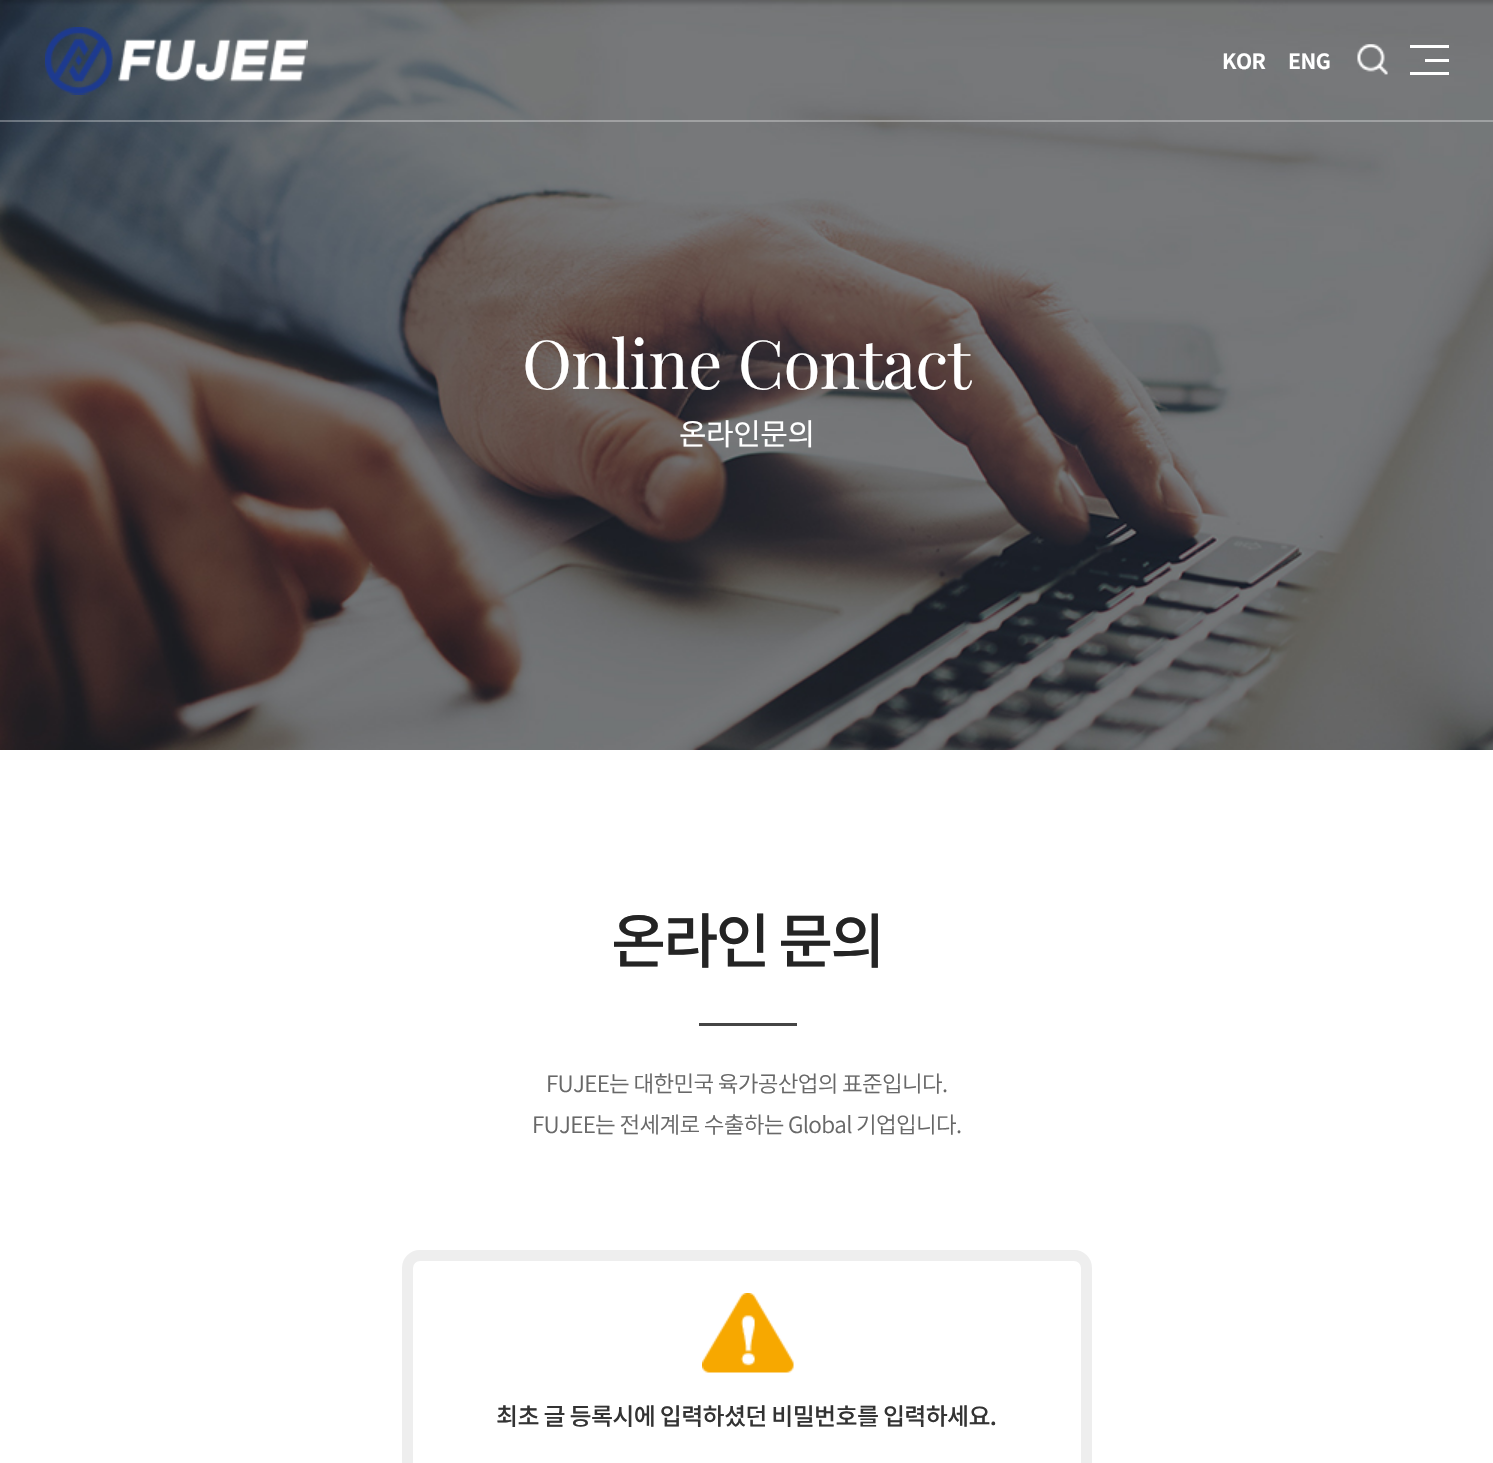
void draw(SkCanvas* canvas) {
	SkPaint fill;
	fill.setAntiAlias(true);
	auto makeFont = [&](const char* family, int weight, float size, bool italic = false) {
		SkFontStyle style(weight, SkFontStyle::kNormal_Width,
			italic ? SkFontStyle::kItalic_Slant : SkFontStyle::kUpright_Slant);
		SkFont result(fontMgr->matchFamilyStyle(family, style), size);
		result.setSubpixel(true);
		return result;
	};
	auto spacedText = [&](const char* s, float x, float y, const SkFont& font, const SkPaint& ink, float letter, float word) {
		std::vector<SkGlyphID> glyphs(font.countText(s, strlen(s), SkTextEncoding::kUTF8));
		std::vector<float> xs(glyphs.size());
		font.textToGlyphs(s, strlen(s), SkTextEncoding::kUTF8, glyphs);
		font.getXPos(glyphs, xs, x);
		float extra = 0;
		for (size_t i = 0; i < glyphs.size(); i++) {
			xs[i] += extra;
			extra += letter + word * (glyphs[i] == font.unicharToGlyph(' '));
		}
		canvas->drawTextBlob(SkTextBlob::MakeFromPosHGlyphs(glyphs, xs, y, font), 0, 0, ink);
	};
	auto box = [&](float l, float t, float r, float b) {
		canvas->drawRect(SkRect::MakeLTRB(l, t, r, b), fill);
	};
	auto picture = [&](const char* path, float l, float t, float r, float b) {
		auto image = SkImages::DeferredFromEncodedData(SkData::MakeFromFileName(path));
		canvas->drawImageRect(image, SkRect::MakeLTRB(l, t, r, b), SkSamplingOptions());
	};
	canvas->clear(0xFFFFFFFF);
	picture("image2.png", 0, 0, 1493, 750);
	fill.setColor(0x4DFFFFFF);
	box(0, 120, 1493, 122);
	fill.setColor(0x33000000);
	fill.setMaskFilter(SkMaskFilter::MakeBlur(kNormal_SkBlurStyle, 2));
	canvas->drawRect(SkRect::MakeLTRB(3, -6, 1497, 3), fill);
	fill.setMaskFilter(nullptr);
	picture("image0.png", 45, 27, 308, 95);
	picture("image1.png", 1357, 44, 1388, 75);
	fill.setColor(0xFFFFFFFF);
	box(1425, 59, 1449, 62);
	box(1410, 45, 1449, 48);
	box(1410, 72, 1449, 75);
	fill.setColor(0xFF454545);
	box(699, 1023, 797, 1026);
	picture("image3.png", 702, 1293, 794, 1373);
	fill.setStyle(SkPaint::kStroke_Style);
	fill.setStrokeWidth(11);
	fill.setColor(0xFFEEEEEE);
	canvas->drawRoundRect(SkRect::MakeLTRB(407.5f, 1255.5f, 1086.5f, 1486.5f), 12.5f, 12.5f, fill);
	auto font1 = makeFont("Noto Sans KR", 700, 21);
	fill.setStyle(SkPaint::kFill_Style);
	fill.setColor(0xFFFFFFFF);
	spacedText("KOR", 1222, 69, font1, fill, -0.5f, 0);
	spacedText("ENG", 1288, 69, font1, fill, -0.5f, 0);
	auto font2 = makeFont("Playfair Display", 400, 67.5f);
	spacedText("Online Contact", 522, 389, font2, fill, -0.7f, 0);
	auto font3 = makeFont("Noto Sans KR", 400, 30);
	spacedText("온라인문의", 679, 445, font3, fill, -0.5f, 0);
	auto font4 = makeFont("Noto Sans KR", 500, 60);
	fill.setColor(0xFF242424);
	spacedText("온라인 문의", 611, 963, font4, fill, -3, 0);
	auto font5 = makeFont("Noto Sans KR", 300, 22.5f);
	fill.setColor(0xFF686868);
	spacedText("FUJEE는 대한민국 육가공산업의 표준입니다.", 546, 1092, font5, fill, -0.7f, 0);
	spacedText("FUJEE는 전세계로 수출하는 Global 기업입니다.", 532, 1133, font5, fill, -0.7f, 0);
	auto font6 = makeFont("Noto Sans KR", 500, 24);
	fill.setColor(0xFF333333);
	spacedText("최초 글 등록시에 입력하셨던 비밀번호를 입력하세요.", 496, 1425, font6, fill, -0.7f, 0);
}
